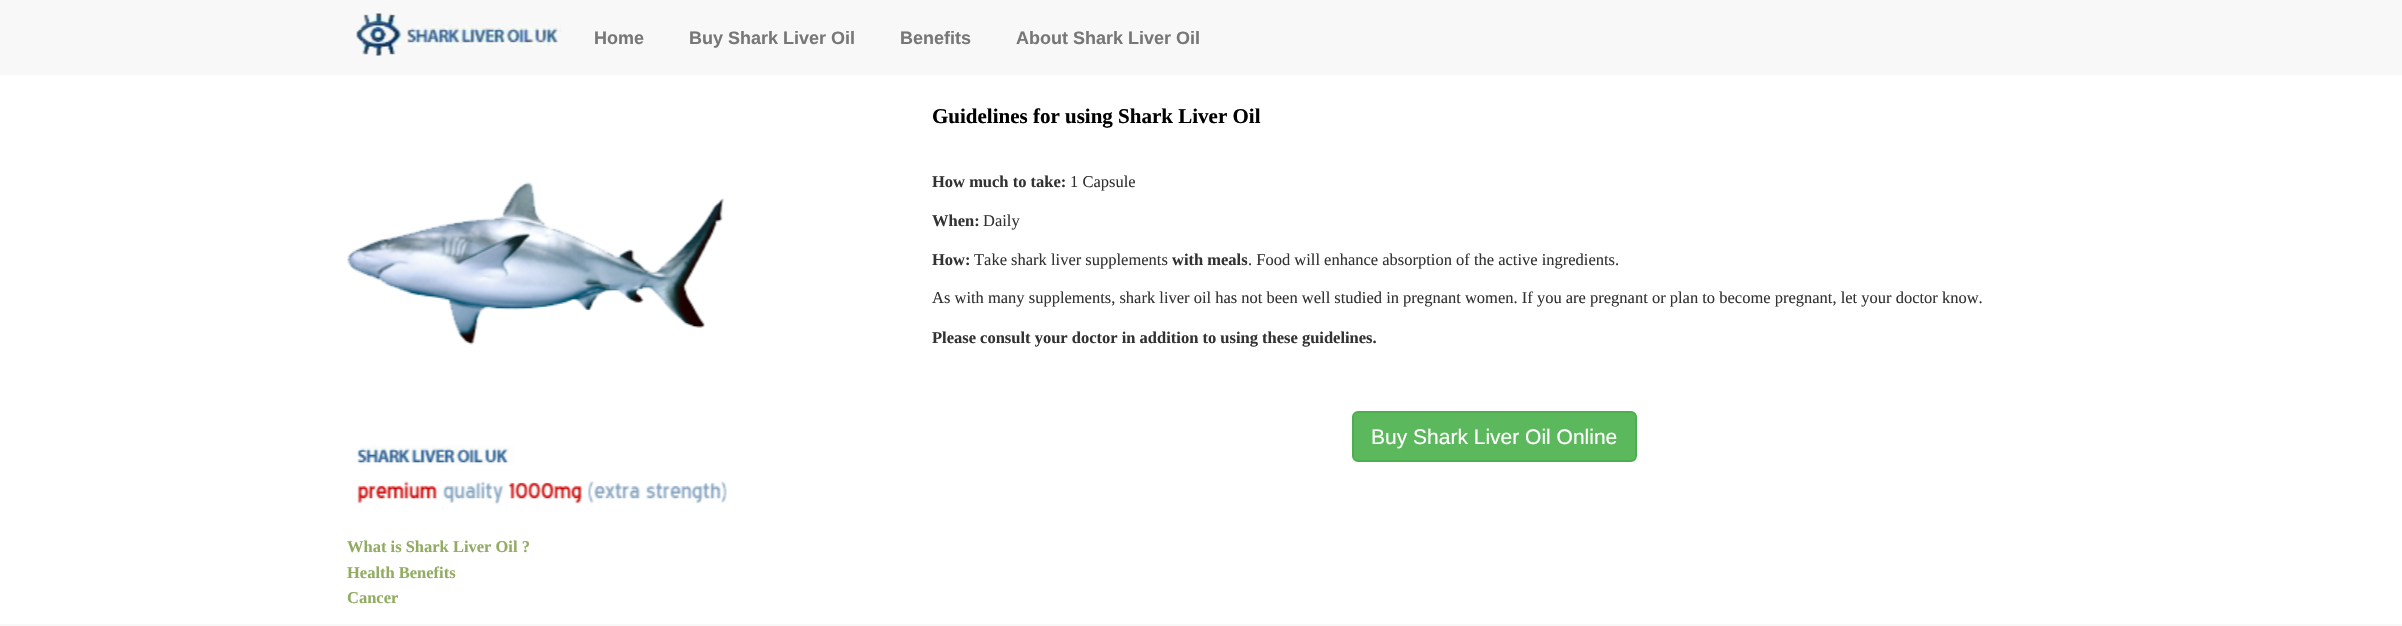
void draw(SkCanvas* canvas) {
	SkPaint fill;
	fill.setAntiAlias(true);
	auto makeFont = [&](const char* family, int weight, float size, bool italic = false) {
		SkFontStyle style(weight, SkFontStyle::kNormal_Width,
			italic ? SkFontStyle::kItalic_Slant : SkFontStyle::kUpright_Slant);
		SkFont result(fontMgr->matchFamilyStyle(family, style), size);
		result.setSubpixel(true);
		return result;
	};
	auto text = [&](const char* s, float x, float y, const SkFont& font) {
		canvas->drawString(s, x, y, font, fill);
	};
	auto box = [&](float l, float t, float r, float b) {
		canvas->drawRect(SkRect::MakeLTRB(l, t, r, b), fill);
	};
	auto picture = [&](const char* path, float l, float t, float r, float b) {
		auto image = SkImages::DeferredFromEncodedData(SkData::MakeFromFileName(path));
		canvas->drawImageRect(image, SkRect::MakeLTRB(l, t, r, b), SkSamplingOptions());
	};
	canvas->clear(0xFFFFFFFF);
	fill.setColor(0xFFF8F8F8);
	box(0, 0, 2402, 75);
	picture("image0.png", 356, 0, 562, 56);
	fill.setColor(0xFF5CB85C);
	canvas->drawRoundRect(SkRect::MakeLTRB(1353, 412, 1636, 461), 5, 5, fill);
	fill.setStyle(SkPaint::kStroke_Style);
	fill.setStrokeWidth(2);
	fill.setColor(0xFF4CAE4C);
	canvas->drawRoundRect(SkRect::MakeLTRB(1353, 412, 1636, 461), 5, 5, fill);
	picture("image1.png", 347, 182, 727, 505);
	fill.setStyle(SkPaint::kFill_Style);
	fill.setColor(0xFFF8F8F8);
	box(0, 624, 2402, 626);
	auto font1 = makeFont("Liberation Sans", 700, 18);
	fill.setColor(0xFF777777);
	text("Home", 594, 44, font1);
	text("Buy Shark Liver Oil", 689, 44, font1);
	text("Benefits", 900, 44, font1);
	text("About Shark Liver Oil", 1016, 44, font1);
	auto font2 = makeFont("Liberation Serif", 700, 21);
	fill.setColor(0xFF000000);
	text("Guidelines for using Shark Liver Oil", 932, 123, font2);
	auto font3 = makeFont("Liberation Serif", 700, 16.5f);
	fill.setColor(0xFF333333);
	text("How much to take:", 932, 187, font3);
	auto font4 = makeFont("Liberation Serif", 400, 16.5f);
	text("1 Capsule", 1070, 187, font4);
	text("When:", 932, 226, font3);
	text("Daily", 983, 226, font4);
	text("How:", 932, 265, font3);
	text("Take shark liver supplements", 974, 265, font4);
	text("with meals", 1172, 265, font3);
	text(". Food will enhance absorption of the active ingredients.", 1248, 265, font4);
	text("As with many supplements, shark liver oil has not been well studied in pregnant women. If you are pregnant or plan to become pregnant, let your doctor know.", 932, 303, font4);
	text("Please consult your doctor in addition to using these guidelines.", 932, 343, font3);
	auto font5 = makeFont("Liberation Sans", 400, 21);
	fill.setColor(0xFFFFFFFF);
	text("Buy Shark Liver Oil Online", 1371, 444, font5);
	fill.setColor(0xFF92AC63);
	text("What is Shark Liver Oil ?", 347, 552, font3);
	text("Health Benefits", 347, 578, font3);
	text("Cancer", 347, 603, font3);
}
